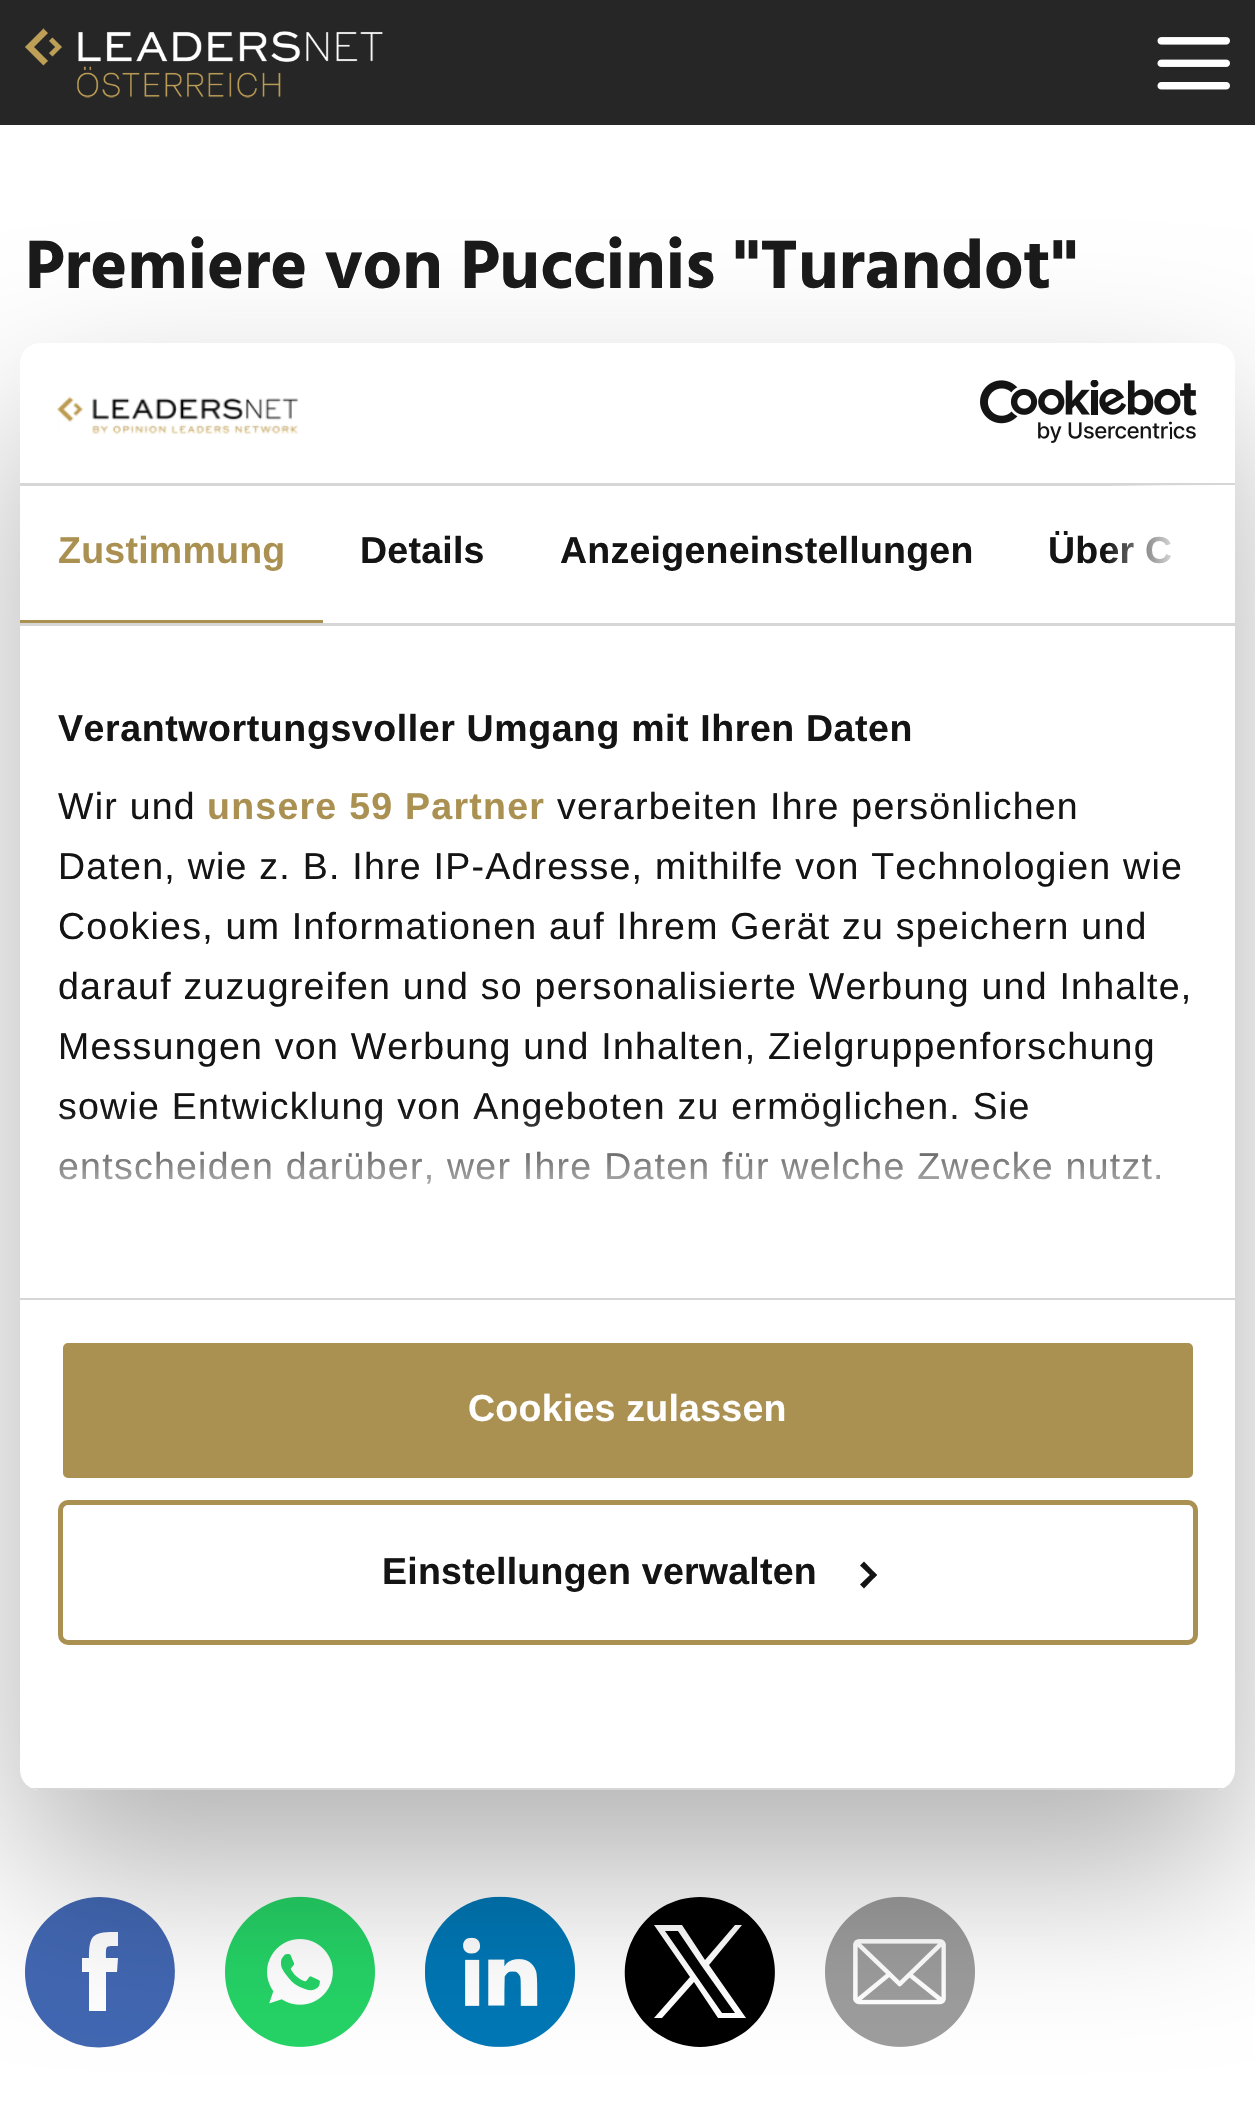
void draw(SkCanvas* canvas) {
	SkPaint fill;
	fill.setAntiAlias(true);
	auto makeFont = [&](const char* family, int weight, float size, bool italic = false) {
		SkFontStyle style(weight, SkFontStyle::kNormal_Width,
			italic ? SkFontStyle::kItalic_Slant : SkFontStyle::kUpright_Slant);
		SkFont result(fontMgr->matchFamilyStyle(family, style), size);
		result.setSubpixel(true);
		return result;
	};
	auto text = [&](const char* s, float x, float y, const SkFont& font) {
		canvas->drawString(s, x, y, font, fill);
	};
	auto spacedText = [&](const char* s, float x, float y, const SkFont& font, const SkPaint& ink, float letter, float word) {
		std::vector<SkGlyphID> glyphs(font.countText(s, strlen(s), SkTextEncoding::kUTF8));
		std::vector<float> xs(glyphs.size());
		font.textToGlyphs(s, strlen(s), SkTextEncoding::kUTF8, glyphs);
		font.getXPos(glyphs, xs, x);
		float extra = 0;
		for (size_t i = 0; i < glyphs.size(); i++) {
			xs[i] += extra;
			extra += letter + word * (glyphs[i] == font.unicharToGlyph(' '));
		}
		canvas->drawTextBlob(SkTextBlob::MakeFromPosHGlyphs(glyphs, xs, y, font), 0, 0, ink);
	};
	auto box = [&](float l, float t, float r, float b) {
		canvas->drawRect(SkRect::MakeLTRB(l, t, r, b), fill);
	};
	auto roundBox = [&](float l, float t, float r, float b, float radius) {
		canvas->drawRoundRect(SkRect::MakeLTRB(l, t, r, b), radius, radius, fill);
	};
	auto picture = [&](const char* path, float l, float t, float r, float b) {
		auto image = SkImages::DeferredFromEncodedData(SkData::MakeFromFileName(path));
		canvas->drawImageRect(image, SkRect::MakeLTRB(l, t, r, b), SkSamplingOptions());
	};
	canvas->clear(0xFFFFFFFF);
	fill.setColor(0xFF262626);
	box(0, 0, 1255, 125);
	picture("image0.png", 25, 28, 383, 98);
	picture("image1.png", 1157, 37, 1230, 90);
	fill.setColor(0xFF4267B2);
	canvas->drawPath(SkPathBuilder().moveTo(91, 2047).cubicTo(78, 2046, 65, 2040, 54, 2032).cubicTo(16, 2002, 15, 1943, 54, 1913).cubicTo(85, 1888, 131, 1893, 157, 1923).cubicTo(184, 1955, 180, 2002, 149, 2029).cubicTo(133, 2043, 112, 2049, 91, 2047).close().moveTo(106, 1992).lineTo(106, 1972).lineTo(117, 1972).lineTo(118, 1958).lineTo(106, 1958).cubicTo(106, 1945, 105, 1946, 118, 1946).lineTo(118, 1932).cubicTo(94, 1932, 89, 1933, 89, 1958).lineTo(82, 1958).lineTo(82, 1972).lineTo(89, 1972).lineTo(89, 2011).lineTo(106, 2011).close().detach(), fill);
	picture("image2.png", 225, 1896, 375, 2047);
	picture("image3.png", 425, 1896, 575, 2047);
	fill.setColor(0xFF000000);
	canvas->drawPath(SkPathBuilder().moveTo(700, 1897).cubicTo(645, 1897, 609, 1955, 632, 2004).cubicTo(638, 2016, 647, 2027, 658, 2034).cubicTo(670, 2042, 685, 2047, 700, 2047).cubicTo(715, 2047, 730, 2042, 742, 2034).cubicTo(753, 2027, 762, 2016, 768, 2004).cubicTo(791, 1955, 755, 1897, 700, 1897).close().moveTo(718, 2018).lineTo(694, 1982).lineTo(662, 2018).lineTo(654, 2018).lineTo(690, 1977).lineTo(654, 1925).lineTo(682, 1925).lineTo(705, 1960).lineTo(735, 1925).lineTo(742, 1925).lineTo(709, 1965).lineTo(746, 2018).close().moveTo(701, 1965).lineTo(678, 1931).lineTo(665, 1931).lineTo(722, 2013).lineTo(735, 2013).close().detach(), fill);
	picture("image4.png", 825, 1896, 975, 2047);
	fill.setColor(0x4D000000);
	fill.setMaskFilter(SkMaskFilter::MakeBlur(kNormal_SkBlurStyle, 85));
	canvas->drawRoundRect(SkRect::MakeLTRB(20, 423, 1235, 1870), 20, 20, fill);
	fill.setMaskFilter(nullptr);
	fill.setColor(0xFFFFFFFF);
	roundBox(20, 343, 1235, 1790, 20);
	fill.setColor(0xFFD6D6D6);
	box(20, 483, 1235, 486);
	picture("image5.png", 57, 396, 298, 435);
	picture("image6.png", 980, 380, 1197, 443);
	box(20, 623, 1235, 626);
	fill.setColor(0xFFAA9152);
	box(20, 620, 323, 623);
	fill.setColor(0xFFD6D6D6);
	box(20, 1298, 1235, 1300);
	canvas->save();
	canvas->clipPath(SkPathBuilder().moveTo(40, 343).lineTo(1215, 343).cubicTo(1226, 343, 1235, 352, 1235, 363).lineTo(1235, 1770).cubicTo(1235, 1781, 1226, 1790, 1215, 1790).lineTo(40, 1790).cubicTo(29, 1790, 20, 1781, 20, 1770).lineTo(20, 363).cubicTo(20, 352, 29, 343, 40, 343).close().detach(), true);
	box(31, 1788, 1224, 1790);
	canvas->restore();
	fill.setColor(0xFFAA9152);
	canvas->drawRoundRect(SkRect::MakeLTRB(60.5f, 1340.5f, 1195.5f, 1480.5f), 7.5f, 7.5f, fill);
	fill.setStyle(SkPaint::kStroke_Style);
	fill.setStrokeWidth(5);
	fill.setColor(0xFFFFFFFF);
	canvas->drawRoundRect(SkRect::MakeLTRB(60.5f, 1340.5f, 1195.5f, 1480.5f), 7.5f, 7.5f, fill);
	fill.setColor(0xFFAA9152);
	canvas->drawRoundRect(SkRect::MakeLTRB(60.5f, 1502.5f, 1195.5f, 1642.5f), 7.5f, 7.5f, fill);
	fill.setStyle(SkPaint::kFill_Style);
	fill.setColor(0xFF141414);
	canvas->drawPath(SkPathBuilder().moveTo(864, 1561.5f).lineTo(877, 1575).lineTo(873.5f, 1578.5f).lineTo(860, 1565.5f).close().detach(), fill);
	canvas->drawPath(SkPathBuilder().moveTo(873.5f, 1571.5f).lineTo(877, 1575).lineTo(864, 1588.5f).lineTo(860, 1584.5f).close().detach(), fill);
	auto font1 = makeFont("Hind", 700, 70);
	fill.setColor(0xFF1A1A1A);
	text("Premiere von Puccinis \"Turandot\"", 25, 288, font1);
	auto font2 = makeFont("Liberation Sans", 700, 37.5f);
	fill.setColor(0xFFAA9152);
	spacedText("Zustimmung", 58, 563, font2, fill, 0.25f, 0);
	fill.setColor(0xFF141414);
	spacedText("Details", 360, 563, font2, fill, 0.25f, 0);
	spacedText("Anzeigeneinstellungen", 560, 563, font2, fill, 0.25f, 0);
	spacedText("Über C", 1048, 563, font2, fill, 0.25f, 0);
	{
		const SkColor colors[] = {0xFFFFFFFF, 0xCCFFFFFF, 0x00FFFFFF};
		const float stops[] = {0, 0.5f, 1};
		const SkPoint ends[] = {{1235, 553}, {1105, 553}};
		fill.setShader(SkGradientShader::MakeLinear(ends, colors, stops, 3, SkTileMode::kClamp));
		fill.setAlpha(255);
	}
	box(1107, 485, 1235, 564);
	fill.setShader(nullptr);
	fill.setColor(0xFF141414);
	spacedText("Verantwortungsvoller Umgang mit Ihren Daten", 58, 741, font2, fill, 0.6f, 0);
	auto font3 = makeFont("Liberation Sans", 400, 37.5f);
	spacedText("Wir und", 58, 819, font3, fill, 1.25f, 0);
	fill.setColor(0xFFAA9152);
	spacedText("unsere 59 Partner", 207, 819, font2, fill, 1.25f, 0);
	fill.setColor(0xFF141414);
	spacedText("verarbeiten Ihre persönlichen", 557, 819, font3, fill, 1.25f, 0);
	spacedText("Daten, wie z. B. Ihre IP-Adresse, mithilfe von Technologien wie", 58, 879, font3, fill, 1.25f, 0);
	spacedText("Cookies, um Informationen auf Ihrem Gerät zu speichern und", 58, 939, font3, fill, 1.25f, 0);
	spacedText("darauf zuzugreifen und so personalisierte Werbung und Inhalte,", 58, 999, font3, fill, 1.25f, 0);
	spacedText("Messungen von Werbung und Inhalten, Zielgruppenforschung", 58, 1059, font3, fill, 1.25f, 0);
	spacedText("sowie Entwicklung von Angeboten zu ermöglichen. Sie", 58, 1119, font3, fill, 1.25f, 0);
	spacedText("entscheiden darüber, wer Ihre Daten für welche Zwecke nutzt.", 58, 1179, font3, fill, 1.25f, 0);
	{
		const SkColor colors[] = {0xFFFFFFFF, 0xCCFFFFFF, 0x00FFFFFF};
		const float stops[] = {0, 0.5f, 1};
		const SkPoint ends[] = {{611, 1297}, {611, 1109}};
		fill.setShader(SkGradientShader::MakeLinear(ends, colors, stops, 3, SkTileMode::kClamp));
		fill.setAlpha(255);
	}
	box(58, 1112, 1160, 1184);
	fill.setShader(nullptr);
	fill.setColor(0xFFFFFFFF);
	spacedText("Cookies zulassen", 468, 1421, font2, fill, 0.25f, 0);
	fill.setColor(0xFF141414);
	spacedText("Einstellungen verwalten", 382, 1584, font2, fill, 0.25f, 0);
}
